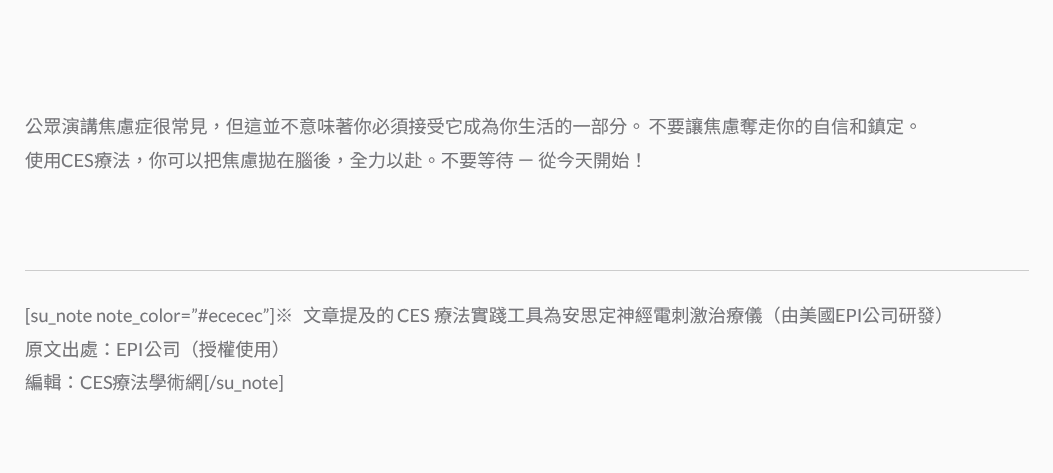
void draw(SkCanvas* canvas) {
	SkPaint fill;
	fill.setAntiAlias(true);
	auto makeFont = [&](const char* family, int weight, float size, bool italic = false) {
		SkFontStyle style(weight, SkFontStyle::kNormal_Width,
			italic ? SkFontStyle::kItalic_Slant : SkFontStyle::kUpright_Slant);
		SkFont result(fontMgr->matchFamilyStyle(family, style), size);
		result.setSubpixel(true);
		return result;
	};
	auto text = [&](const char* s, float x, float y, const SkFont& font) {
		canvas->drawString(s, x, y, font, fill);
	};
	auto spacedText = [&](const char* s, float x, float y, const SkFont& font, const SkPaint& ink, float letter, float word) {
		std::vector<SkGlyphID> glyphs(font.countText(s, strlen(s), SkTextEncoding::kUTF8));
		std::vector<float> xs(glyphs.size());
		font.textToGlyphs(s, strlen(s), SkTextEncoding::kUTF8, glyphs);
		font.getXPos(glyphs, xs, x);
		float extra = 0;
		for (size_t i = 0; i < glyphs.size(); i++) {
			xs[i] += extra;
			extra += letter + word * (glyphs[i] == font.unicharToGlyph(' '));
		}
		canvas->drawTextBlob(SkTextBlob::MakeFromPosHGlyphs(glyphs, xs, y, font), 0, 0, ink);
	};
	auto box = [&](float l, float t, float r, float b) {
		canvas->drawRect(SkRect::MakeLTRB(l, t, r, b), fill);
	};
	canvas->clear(0xFFFAFAFA);
	fill.setColor(0xFFCCCCCC);
	box(25, 270, 1029, 271);
	auto font1 = makeFont("Noto Sans CJK TC", 400, 18.25f);
	fill.setColor(0xFF757579);
	spacedText("公眾演講焦慮症很常見，但這並不意味著你必須接受它成為你生活的一部分。 不要讓焦慮奪走你的自信和鎮定。", 25, 133, font1, fill, 0, -1);
	text("使用", 25, 167, font1);
	auto font2 = makeFont("Lato", 400, 18.25f);
	text("CES", 61, 167, font2);
	spacedText("療法，你可以把焦慮拋在腦後，全力以赴。不要等待 － 從今天開始！", 94, 167, font1, fill, 0, -1);
	text("[su_note note_color=”#ececec”]", 25, 322, font2);
	text("※", 275, 322, font1);
	text("文章提及的", 303, 322, font1);
	text("CES", 397, 322, font2);
	text("療法實踐工具為安思定神經電刺激治療儀（由美國", 434, 322, font1);
	text("EPI", 835, 322, font2);
	text("公司研發）", 862, 322, font1);
	text("原文出處：", 25, 356, font1);
	text("EPI", 116, 356, font2);
	text("公司（授權使用）", 144, 356, font1);
	text("編輯：", 25, 389, font1);
	text("CES", 80, 389, font2);
	text("療法學術網", 112, 389, font1);
	text("[/su_note]", 204, 389, font2);
}
